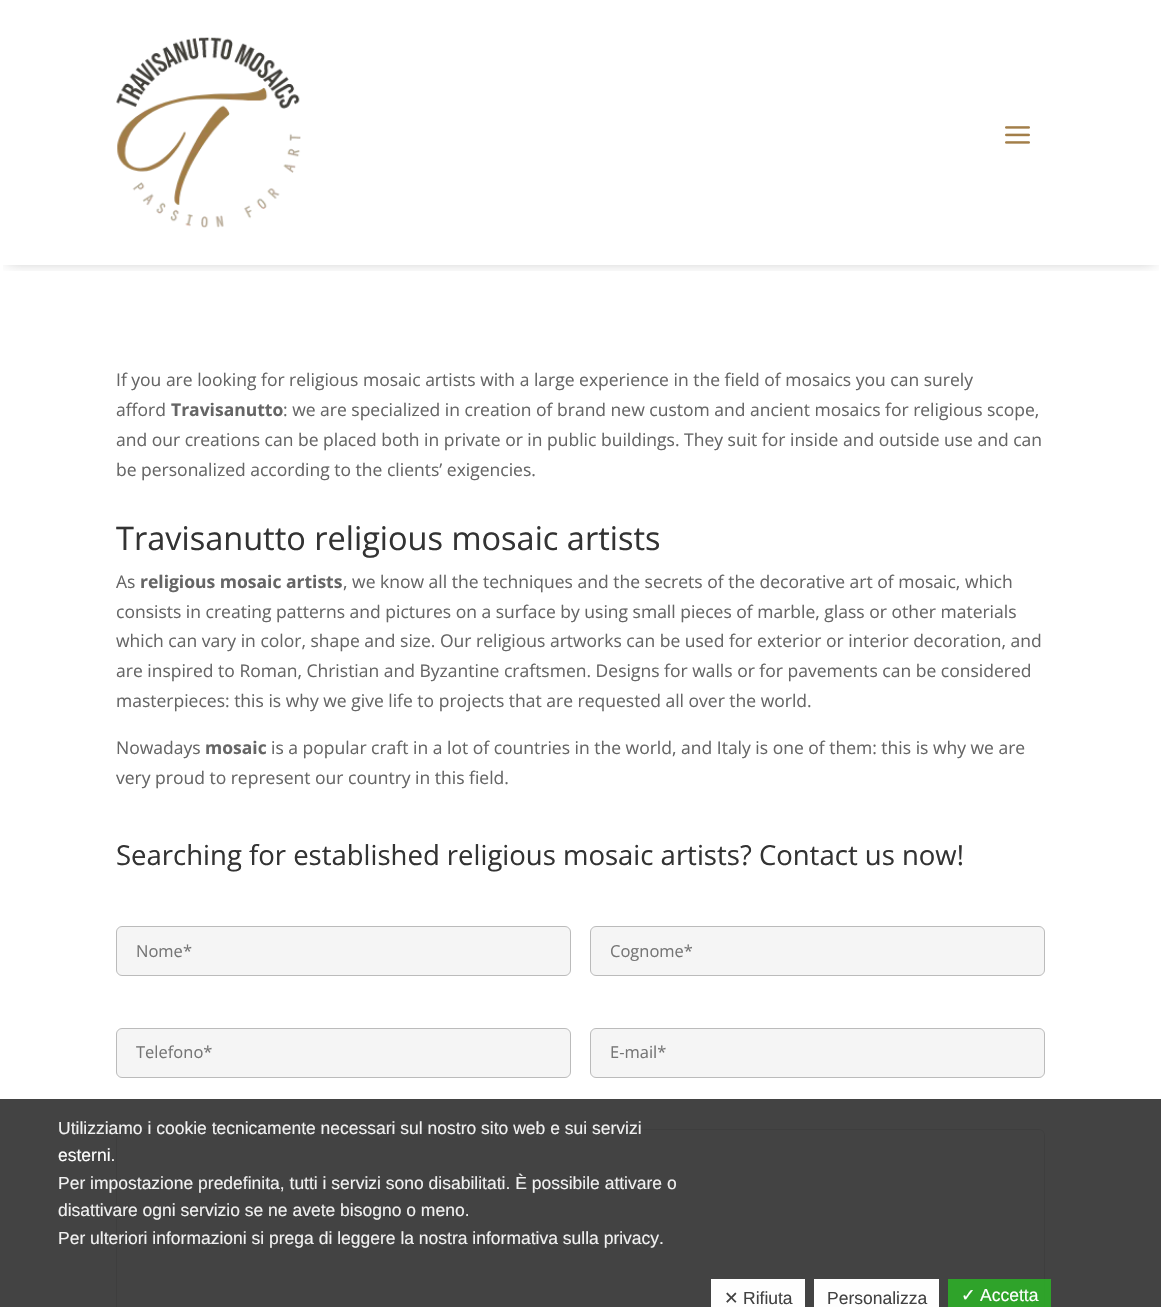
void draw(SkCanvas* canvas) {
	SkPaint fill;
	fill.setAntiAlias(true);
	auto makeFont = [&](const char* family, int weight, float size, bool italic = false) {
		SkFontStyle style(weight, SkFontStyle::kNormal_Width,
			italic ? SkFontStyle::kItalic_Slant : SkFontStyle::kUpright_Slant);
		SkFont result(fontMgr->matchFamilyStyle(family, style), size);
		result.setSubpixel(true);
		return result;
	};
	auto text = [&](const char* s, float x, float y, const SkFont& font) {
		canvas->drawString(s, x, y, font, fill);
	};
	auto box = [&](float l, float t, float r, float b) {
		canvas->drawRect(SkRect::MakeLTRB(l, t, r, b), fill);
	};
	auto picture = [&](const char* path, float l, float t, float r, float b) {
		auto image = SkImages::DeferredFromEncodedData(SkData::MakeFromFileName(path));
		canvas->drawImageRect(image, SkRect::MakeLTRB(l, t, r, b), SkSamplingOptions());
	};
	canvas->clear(0xFFFFFFFF);
	canvas->save();
	canvas->clipRect(SkRect::MakeLTRB(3, 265, 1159, 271));
	fill.setColor(0x4D000000);
	fill.setMaskFilter(SkMaskFilter::MakeBlur(kNormal_SkBlurStyle, 7));
	canvas->drawRect(SkRect::MakeLTRB(8, 11, 1154, 261), fill);
	fill.setMaskFilter(nullptr);
	canvas->restore();
	picture("image0.png", 116, 37, 301, 228);
	picture("image1.png", 1005, 126, 1030, 144);
	fill.setColor(0xFF434343);
	box(0, 1099, 1161, 1307);
	fill.setColor(0xFFF5F5F5);
	canvas->drawRoundRect(SkRect::MakeLTRB(116.5f, 926.5f, 570.5f, 975.5f), 5.5f, 5.5f, fill);
	fill.setStyle(SkPaint::kStroke_Style);
	fill.setStrokeWidth(1);
	fill.setColor(0xFFBBBBBB);
	canvas->drawRoundRect(SkRect::MakeLTRB(116.5f, 926.5f, 570.5f, 975.5f), 5.5f, 5.5f, fill);
	fill.setStyle(SkPaint::kFill_Style);
	fill.setColor(0xFFF5F5F5);
	canvas->drawRoundRect(SkRect::MakeLTRB(590.5f, 926.5f, 1044.5f, 975.5f), 5.5f, 5.5f, fill);
	fill.setStyle(SkPaint::kStroke_Style);
	fill.setColor(0xFFBBBBBB);
	canvas->drawRoundRect(SkRect::MakeLTRB(590.5f, 926.5f, 1044.5f, 975.5f), 5.5f, 5.5f, fill);
	fill.setStyle(SkPaint::kFill_Style);
	fill.setColor(0xFFF5F5F5);
	canvas->drawRoundRect(SkRect::MakeLTRB(116.5f, 1028.5f, 570.5f, 1077.5f), 5.5f, 5.5f, fill);
	fill.setStyle(SkPaint::kStroke_Style);
	fill.setColor(0xFFBBBBBB);
	canvas->drawRoundRect(SkRect::MakeLTRB(116.5f, 1028.5f, 570.5f, 1077.5f), 5.5f, 5.5f, fill);
	fill.setStyle(SkPaint::kFill_Style);
	fill.setColor(0xFFF5F5F5);
	canvas->drawRoundRect(SkRect::MakeLTRB(590.5f, 1028.5f, 1044.5f, 1077.5f), 5.5f, 5.5f, fill);
	fill.setStyle(SkPaint::kStroke_Style);
	fill.setColor(0xFFBBBBBB);
	canvas->drawRoundRect(SkRect::MakeLTRB(590.5f, 1028.5f, 1044.5f, 1077.5f), 5.5f, 5.5f, fill);
	fill.setColor(0xFF3E3E3E);
	canvas->drawRoundRect(SkRect::MakeLTRB(116.5f, 1129.5f, 1044.5f, 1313.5f), 5.5f, 5.5f, fill);
	fill.setStyle(SkPaint::kFill_Style);
	fill.setColor(0xFFFEFEFE);
	box(711, 1279, 805, 1307);
	box(814, 1279, 939, 1307);
	fill.setColor(0xEB2CAA27);
	box(948, 1279, 1051, 1307);
	auto font1 = makeFont("Open Sans", 400, 17.5f);
	fill.setColor(0xFF666666);
	text("If you are looking for religious mosaic artists with a large experience in the field of mosaics you can surely", 116, 386, font1);
	text("afford", 116, 416, font1);
	auto font2 = makeFont("Open Sans", 700, 17.5f);
	text("Travisanutto", 171, 416, font2);
	text(": we are specialized in creation of brand new custom and ancient mosaics for religious scope,", 283, 416, font1);
	text("and our creations can be placed both in private or in public buildings. They suit for inside and outside use and can", 116, 446, font1);
	text("be personalized according to the clients’ exigencies.", 116, 476, font1);
	auto font3 = makeFont("Open Sans", 400, 32.5f);
	fill.setColor(0xFF333333);
	text("Travisanutto religious mosaic artists", 116, 550, font3);
	fill.setColor(0xFF666666);
	text("As", 116, 588, font1);
	text("religious mosaic artists", 140, 588, font2);
	text(", we know all the techniques and the secrets of the decorative art of mosaic, which", 343, 588, font1);
	text("consists in creating patterns and pictures on a surface by using small pieces of marble, glass or other materials", 116, 618, font1);
	text("which can vary in color, shape and size. Our religious artworks can be used for exterior or interior decoration, and", 116, 647, font1);
	text("are inspired to Roman, Christian and Byzantine craftsmen. Designs for walls or for pavements can be considered", 116, 677, font1);
	text("masterpieces: this is why we give life to projects that are requested all over the world.", 116, 707, font1);
	text("Nowadays", 116, 754, font1);
	text("mosaic", 205, 754, font2);
	text("is a popular craft in a lot of countries in the world, and Italy is one of them: this is why we are", 271, 754, font1);
	text("very proud to represent our country in this field.", 116, 784, font1);
	auto font4 = makeFont("Open Sans", 400, 27.5f);
	fill.setColor(0xFF333333);
	text("Searching for established religious mosaic artists? Contact us now!", 116, 865, font4);
	auto font5 = makeFont("Open Sans", 400, 16.5f);
	fill.setColor(0xFF757575);
	text("Nome*", 136, 957, font5);
	text("Cognome*", 610, 957, font5);
	text("Telefono*", 136, 1058, font5);
	text("E-mail*", 610, 1058, font5);
	auto font6 = makeFont("Liberation Sans", 400, 17.5f);
	fill.setColor(0xFFF1F1F1);
	text("Utilizziamo i cookie tecnicamente necessari sul nostro sito web e sui servizi", 58, 1134, font6);
	fill.setColor(0xFFFFFFFF);
	text("esterni.", 58, 1161, font6);
	fill.setColor(0xFFF1F1F1);
	text("Per impostazione predefinita, tutti i servizi sono disabilitati. È possibile attivare o", 58, 1189, font6);
	text("disattivare ogni servizio se ne avete bisogno o meno.", 58, 1216, font6);
	text("Per ulteriori informazioni si prega di leggere la nostra informativa sulla privacy.", 58, 1244, font6);
	auto font7 = makeFont("DejaVu Sans", 400, 17.5f);
	fill.setColor(0xFF424242);
	text("✕", 724, 1304, font7);
	text("Rifiuta", 743, 1304, font6);
	text("Personalizza", 827, 1304, font6);
	fill.setColor(0xFFFFFFFF);
	text("✓", 961, 1301, font7);
	text("Accetta", 980, 1301, font6);
}
